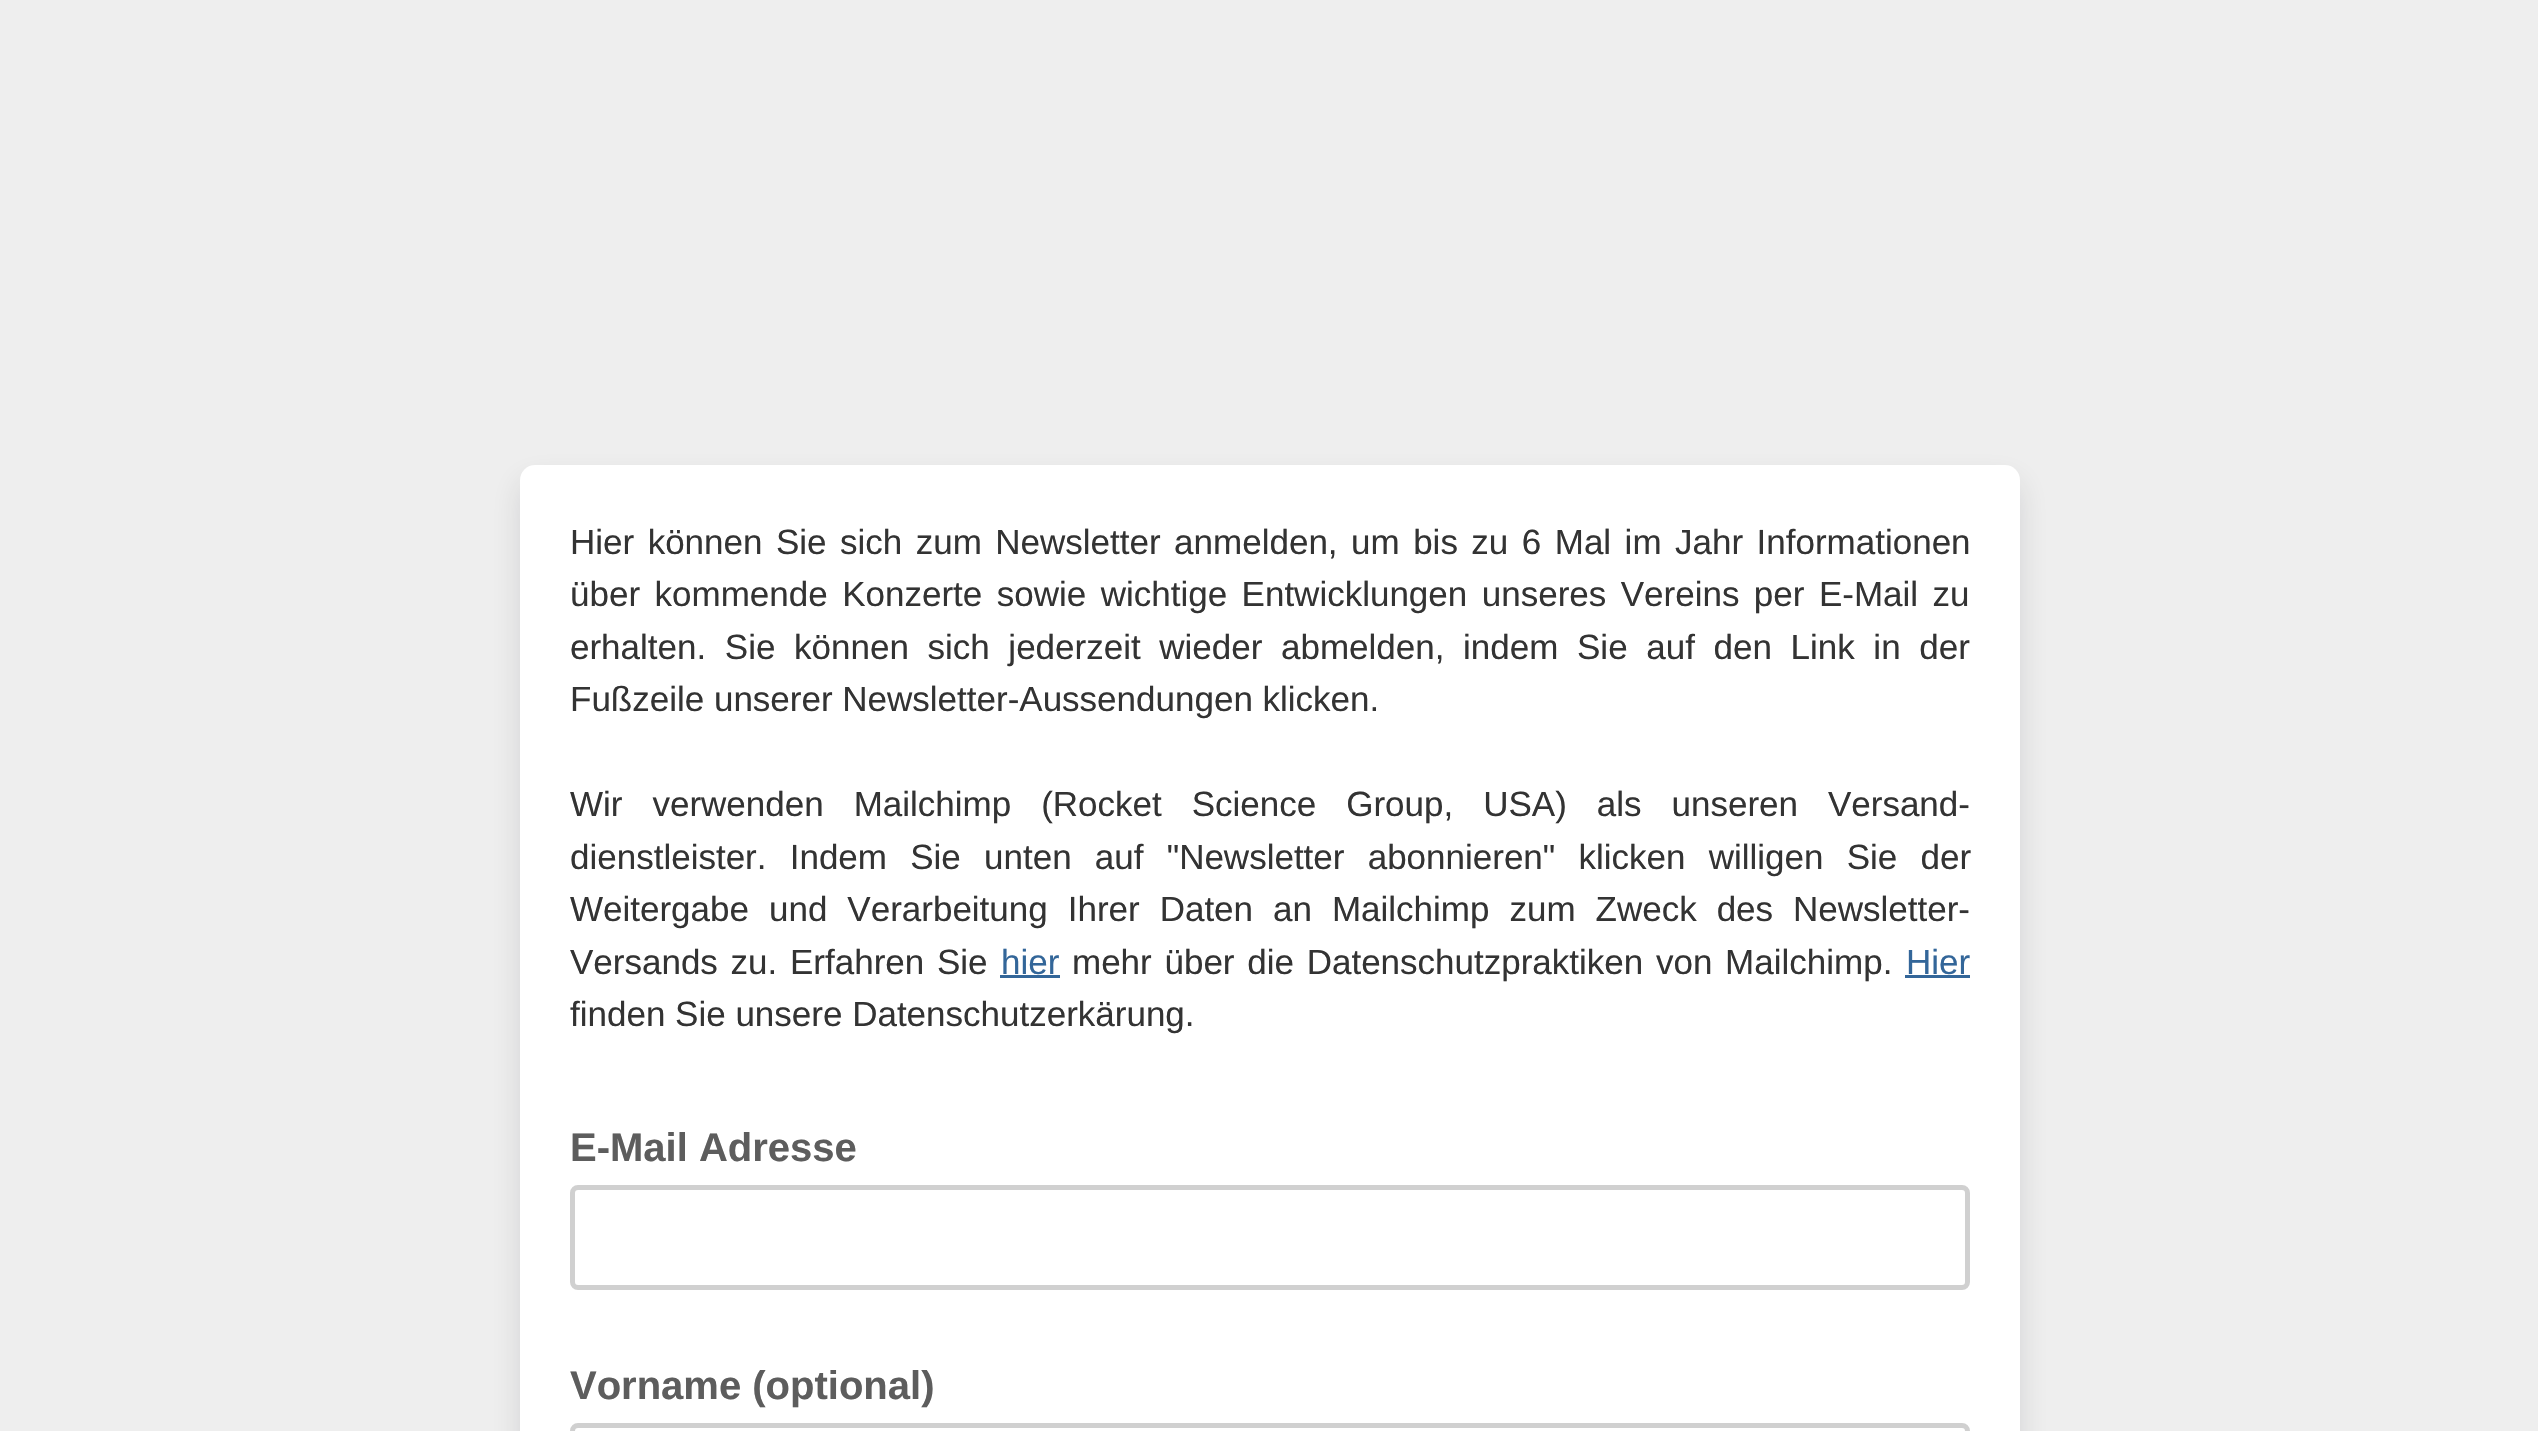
void draw(SkCanvas* canvas) {
	SkPaint fill;
	fill.setAntiAlias(true);
	auto makeFont = [&](const char* family, int weight, float size, bool italic = false) {
		SkFontStyle style(weight, SkFontStyle::kNormal_Width,
			italic ? SkFontStyle::kItalic_Slant : SkFontStyle::kUpright_Slant);
		SkFont result(fontMgr->matchFamilyStyle(family, style), size);
		result.setSubpixel(true);
		return result;
	};
	auto text = [&](const char* s, float x, float y, const SkFont& font) {
		canvas->drawString(s, x, y, font, fill);
	};
	auto spacedText = [&](const char* s, float x, float y, const SkFont& font, const SkPaint& ink, float letter, float word) {
		std::vector<SkGlyphID> glyphs(font.countText(s, strlen(s), SkTextEncoding::kUTF8));
		std::vector<float> xs(glyphs.size());
		font.textToGlyphs(s, strlen(s), SkTextEncoding::kUTF8, glyphs);
		font.getXPos(glyphs, xs, x);
		float extra = 0;
		for (size_t i = 0; i < glyphs.size(); i++) {
			xs[i] += extra;
			extra += letter + word * (glyphs[i] == font.unicharToGlyph(' '));
		}
		canvas->drawTextBlob(SkTextBlob::MakeFromPosHGlyphs(glyphs, xs, y, font), 0, 0, ink);
	};
	auto box = [&](float l, float t, float r, float b) {
		canvas->drawRect(SkRect::MakeLTRB(l, t, r, b), fill);
	};
	auto roundBox = [&](float l, float t, float r, float b, float radius) {
		canvas->drawRoundRect(SkRect::MakeLTRB(l, t, r, b), radius, radius, fill);
	};
	canvas->clear(0xFFEEEEEE);
	fill.setColor(0x1F0D1216);
	fill.setMaskFilter(SkMaskFilter::MakeBlur(kNormal_SkBlurStyle, 15));
	canvas->drawRoundRect(SkRect::MakeLTRB(520, 480, 2020, 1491), 15, 15, fill);
	fill.setMaskFilter(nullptr);
	fill.setColor(0xFFFFFFFF);
	roundBox(520, 465, 2020, 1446, 15);
	fill.setColor(0xFF336699);
	box(1000, 975, 1060, 978);
	box(1905, 975, 1970, 978);
	fill.setStyle(SkPaint::kStroke_Style);
	fill.setStrokeWidth(5);
	fill.setColor(0xFFD0D0D0);
	canvas->drawRoundRect(SkRect::MakeLTRB(572.5f, 1187.5f, 1967.5f, 1287.5f), 5.5f, 5.5f, fill);
	canvas->drawRoundRect(SkRect::MakeLTRB(572.5f, 1425.5f, 1967.5f, 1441.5f), 5.5f, 5.5f, fill);
	auto font1 = makeFont("Liberation Sans", 400, 35);
	fill.setStyle(SkPaint::kFill_Style);
	fill.setColor(0xFF333333);
	spacedText("Hier können Sie sich zum Newsletter anmelden, um bis zu 6 Mal im Jahr Informationen", 570, 554, font1, fill, 0, 3.75f);
	spacedText("über kommende Konzerte sowie wichtige Entwicklungen unseres Vereins per E-Mail zu", 570, 606, font1, fill, 0, 4.75f);
	spacedText("erhalten. Sie können sich jederzeit wieder abmelden, indem Sie auf den Link in der", 570, 659, font1, fill, 0, 8.9f);
	text("Fußzeile unserer Newsletter-Aussendungen klicken.", 570, 711, font1);
	spacedText("Wir verwenden Mailchimp (Rocket Science Group, USA) als unseren Versand-", 570, 816, font1, fill, 0, 20.25f);
	spacedText("dienstleister. Indem Sie unten auf \"Newsletter abonnieren\" klicken willigen Sie der", 570, 869, font1, fill, 0, 13.5f);
	spacedText("Weitergabe und Verarbeitung Ihrer Daten an Mailchimp zum Zweck des Newsletter-", 570, 921, font1, fill, 0, 10.25f);
	spacedText("Versands zu.", 570, 974, font1, fill, 0, 3);
	spacedText("Erfahren Sie", 790, 974, font1, fill, 0, 3);
	fill.setColor(0xFF336699);
	text("hier", 1001, 974, font1);
	fill.setColor(0xFF333333);
	spacedText("mehr über die Datenschutzpraktiken von Mailchimp.", 1072, 974, font1, fill, 0, 3);
	fill.setColor(0xFF336699);
	text("Hier", 1906, 974, font1);
	fill.setColor(0xFF333333);
	text("finden Sie unsere Datenschutzerkärung.", 570, 1026, font1);
	auto font2 = makeFont("Liberation Sans", 700, 40);
	fill.setColor(0xFF5D5D5D);
	text("E-Mail Adresse", 570, 1161, font2);
	text("Vorname (optional)", 570, 1399, font2);
}
